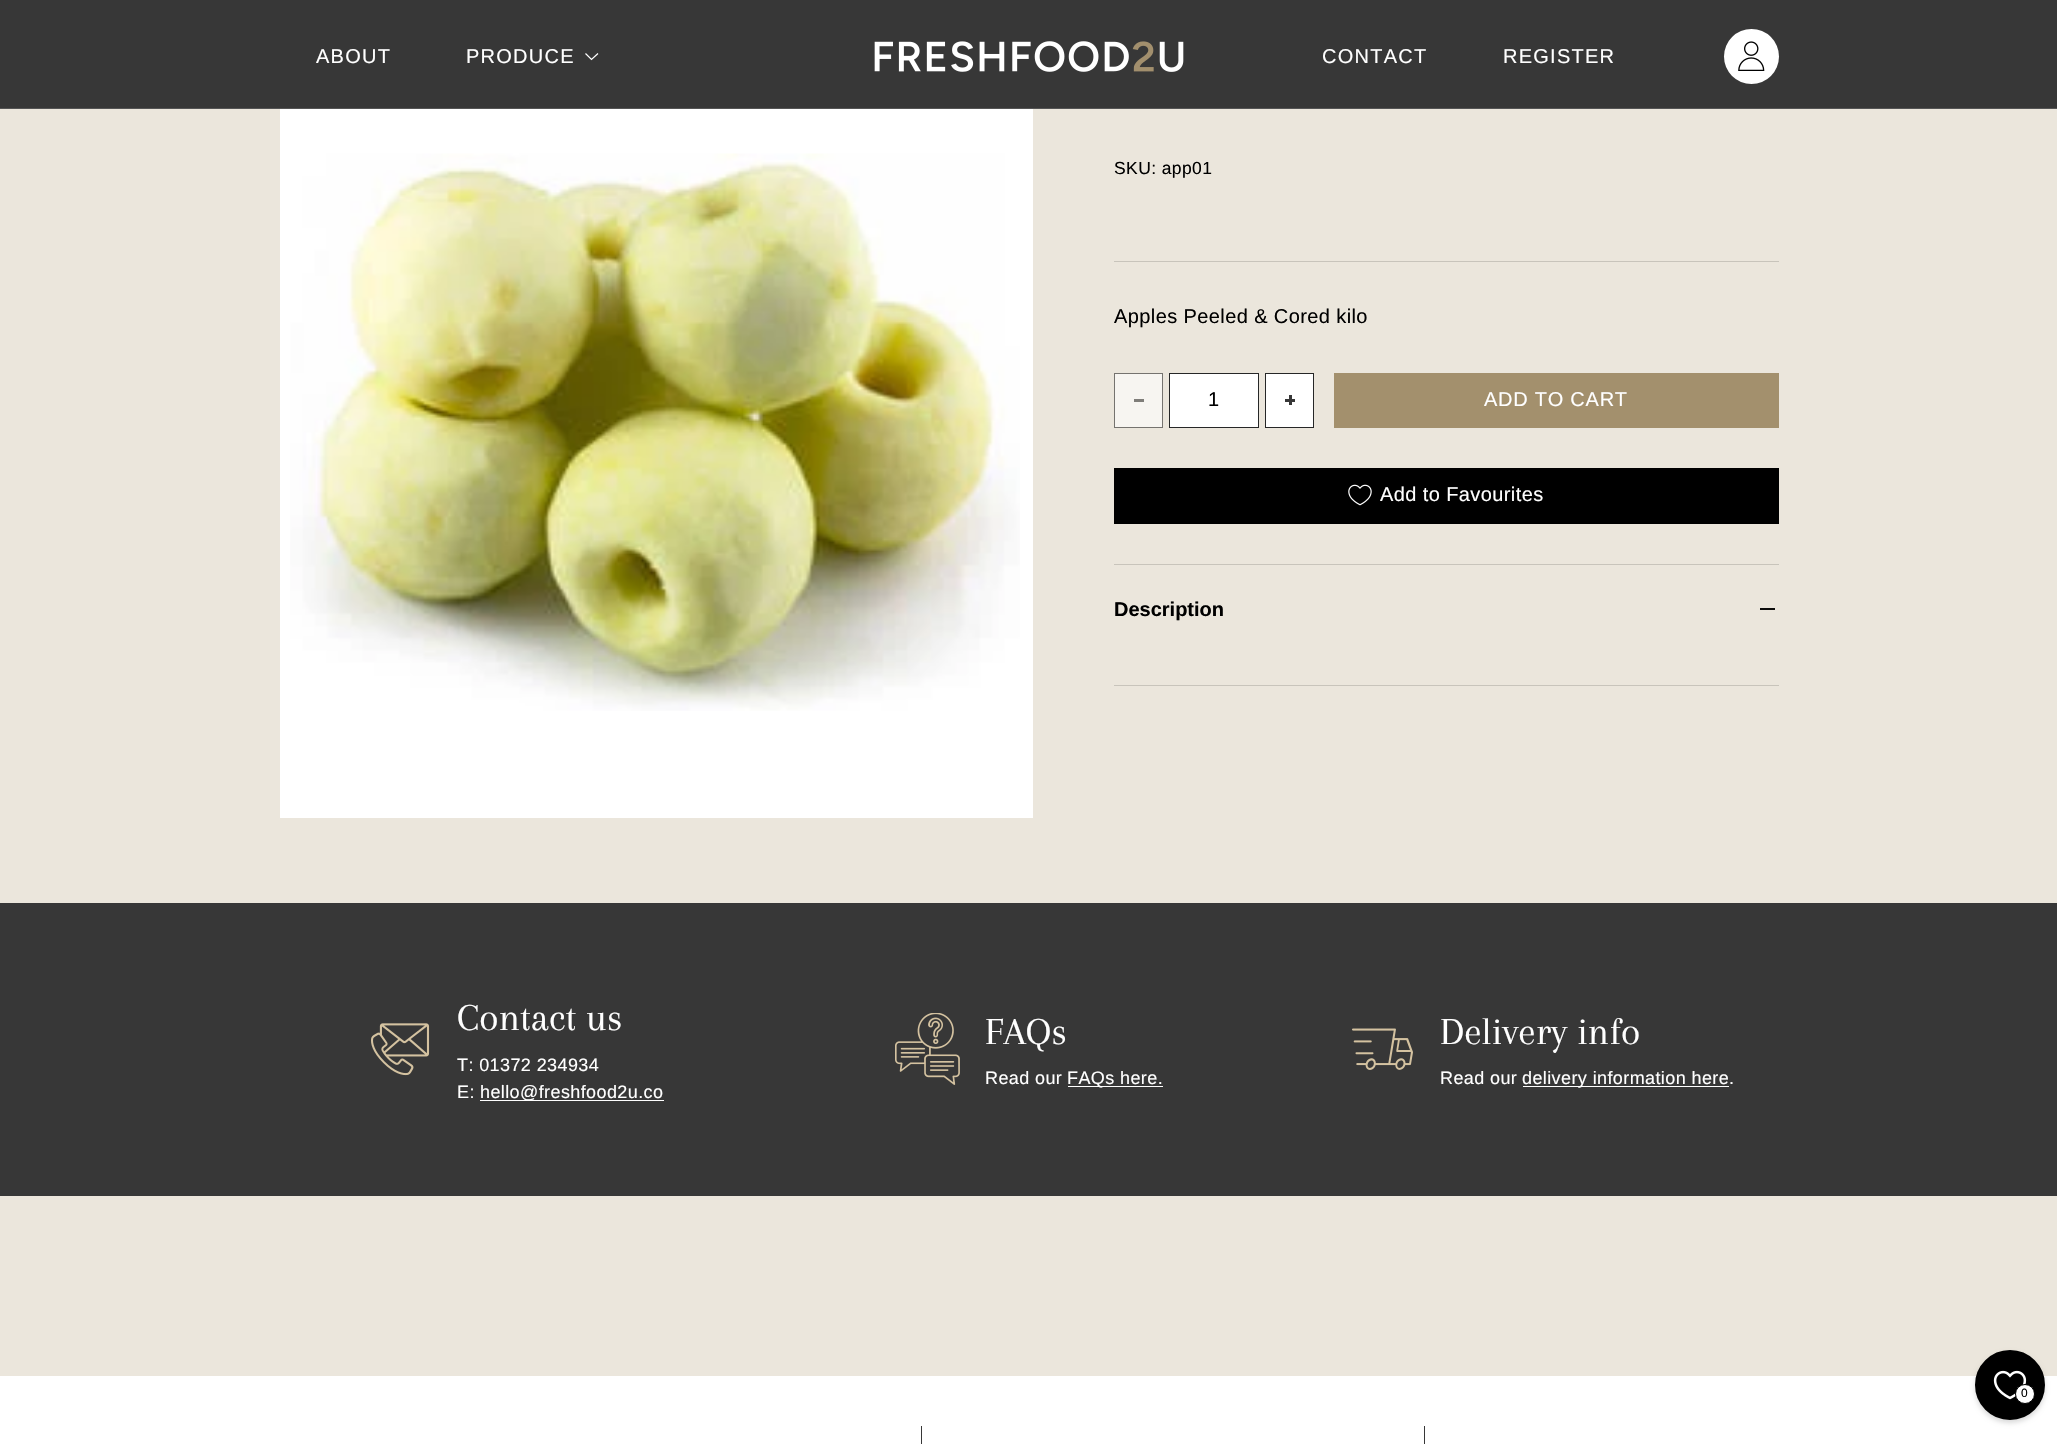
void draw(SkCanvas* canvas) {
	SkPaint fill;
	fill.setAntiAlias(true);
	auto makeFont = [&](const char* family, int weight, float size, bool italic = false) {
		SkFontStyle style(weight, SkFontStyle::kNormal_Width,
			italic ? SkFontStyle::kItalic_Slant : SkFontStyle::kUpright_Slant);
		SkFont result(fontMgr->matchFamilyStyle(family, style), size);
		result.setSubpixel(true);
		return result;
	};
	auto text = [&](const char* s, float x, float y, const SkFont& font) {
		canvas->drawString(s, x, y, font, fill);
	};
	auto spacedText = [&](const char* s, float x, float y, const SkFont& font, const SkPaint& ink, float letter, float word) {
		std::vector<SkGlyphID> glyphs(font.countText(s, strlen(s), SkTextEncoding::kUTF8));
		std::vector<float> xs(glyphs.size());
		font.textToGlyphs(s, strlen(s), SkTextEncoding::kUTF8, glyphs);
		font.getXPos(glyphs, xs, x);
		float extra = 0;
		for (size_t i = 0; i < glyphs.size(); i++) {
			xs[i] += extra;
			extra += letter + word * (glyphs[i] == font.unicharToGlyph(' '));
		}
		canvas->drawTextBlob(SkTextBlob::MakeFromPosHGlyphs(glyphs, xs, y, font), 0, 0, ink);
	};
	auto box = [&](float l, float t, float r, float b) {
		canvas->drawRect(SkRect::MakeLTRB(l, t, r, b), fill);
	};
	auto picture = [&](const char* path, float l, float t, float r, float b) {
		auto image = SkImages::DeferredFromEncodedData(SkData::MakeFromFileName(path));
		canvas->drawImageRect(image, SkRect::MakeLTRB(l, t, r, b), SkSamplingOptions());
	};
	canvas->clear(0xFFEBE6DC);
	fill.setColor(0xFF373737);
	box(0, 0, 2057, 108);
	fill.setStyle(SkPaint::kStroke_Style);
	fill.setStrokeWidth(1.2f);
	fill.setColor(0xFFFFFFFF);
	canvas->drawPath(SkPathBuilder().moveTo(598, 53.5f).lineTo(591.5f, 59.5f).lineTo(585.5f, 53.5f).detach(), fill);
	picture("image0.png", 874, 41, 1184, 72);
	fill.setStyle(SkPaint::kFill_Style);
	canvas->drawCircle(1751.5f, 56.5f, 27.5f, fill);
	picture("image1.png", 1738, 41, 1765, 71);
	fill.setColor(0xFF555555);
	box(0, 108, 2057, 109);
	fill.setColor(0xFFFFFFFF);
	box(280, 109, 1033, 818);
	picture("image2.png", 290, 153, 1020, 711);
	fill.setColor(0xFFC8C4BB);
	box(1114, 261, 1779, 262);
	fill.setColor(0xFFF7F5F1);
	canvas->drawRect(SkRect::MakeLTRB(1114.5f, 373.5f, 1162.5f, 427.5f), fill);
	fill.setStyle(SkPaint::kStroke_Style);
	fill.setStrokeWidth(1);
	fill.setColor(0xFF75736F);
	canvas->drawRect(SkRect::MakeLTRB(1114.5f, 373.5f, 1162.5f, 427.5f), fill);
	fill.setStyle(SkPaint::kFill_Style);
	fill.setColor(0xFF7F7D79);
	box(1134, 399, 1144, 402);
	fill.setColor(0xFFFFFFFF);
	canvas->drawRect(SkRect::MakeLTRB(1169.5f, 373.5f, 1258.5f, 427.5f), fill);
	fill.setStyle(SkPaint::kStroke_Style);
	fill.setColor(0xFF262727);
	canvas->drawRect(SkRect::MakeLTRB(1169.5f, 373.5f, 1258.5f, 427.5f), fill);
	fill.setStyle(SkPaint::kFill_Style);
	fill.setColor(0xFFFFFFFF);
	canvas->drawRect(SkRect::MakeLTRB(1265.5f, 373.5f, 1313.5f, 427.5f), fill);
	fill.setStyle(SkPaint::kStroke_Style);
	fill.setColor(0xFF262727);
	canvas->drawRect(SkRect::MakeLTRB(1265.5f, 373.5f, 1313.5f, 427.5f), fill);
	fill.setStyle(SkPaint::kFill_Style);
	fill.setColor(0xFF373737);
	box(1285, 399, 1295, 402);
	box(1289, 395, 1292, 405);
	{
		const SkColor colors[] = {0xFFB7A88C, 0xFFA3906D, 0xFFA3906D};
		const float stops[] = {0.6f, 0.6f, 1};
		const SkPoint ends[] = {{476, 242}, {1746, 558}};
		fill.setShader(SkGradientShader::MakeLinear(ends, colors, stops, 3, SkTileMode::kClamp));
		fill.setAlpha(255);
	}
	box(1334, 373, 1779, 428);
	fill.setShader(nullptr);
	fill.setColor(0xFF000000);
	box(1114, 468, 1779, 524);
	picture("image3.png", 1348, 484, 1372, 506);
	fill.setColor(0xFFC8C4BB);
	box(1114, 564, 1779, 565);
	box(1114, 685, 1779, 686);
	fill.setColor(0xFF0C0C0B);
	box(1760, 608, 1775, 610);
	fill.setColor(0xFF373737);
	box(0, 903, 2057, 1196);
	picture("image4.png", 371, 1023, 430, 1076);
	fill.setColor(0xFFFFFFFF);
	box(480, 1100, 664, 1101);
	picture("image5.png", 895, 1013, 960, 1085);
	box(1068, 1086, 1163, 1087);
	picture("image6.png", 1352, 1028, 1413, 1070);
	box(1523, 1086, 1729, 1087);
	box(0, 1376, 2057, 1444);
	fill.setColor(0xFF373737);
	box(921, 1426, 922, 1444);
	box(1424, 1426, 1425, 1444);
	fill.setColor(0x26000000);
	fill.setMaskFilter(SkMaskFilter::MakeBlur(kNormal_SkBlurStyle, 2.5f));
	canvas->drawRoundRect(SkRect::MakeLTRB(1975, 1353, 2045, 1423), 35, 35, fill);
	fill.setMaskFilter(nullptr);
	fill.setColor(0xFF000000);
	canvas->drawCircle(2010, 1385, 33.5f, fill);
	fill.setStyle(SkPaint::kStroke_Style);
	fill.setStrokeWidth(3);
	canvas->drawCircle(2010, 1385, 33.5f, fill);
	picture("image7.png", 1993, 1370, 2027, 1400);
	fill.setStyle(SkPaint::kFill_Style);
	fill.setColor(0xFFFFFFFF);
	canvas->drawCircle(2025, 1394, 9.5f, fill);
	fill.setStyle(SkPaint::kStroke_Style);
	fill.setStrokeWidth(1);
	fill.setColor(0xFF000000);
	canvas->drawCircle(2025, 1394, 9.5f, fill);
	auto font1 = makeFont("Liberation Sans", 400, 20);
	fill.setStyle(SkPaint::kFill_Style);
	fill.setColor(0xFFFFFFFF);
	spacedText("ABOUT", 316, 63, font1, fill, 1.25f, 0);
	spacedText("PRODUCE", 466, 63, font1, fill, 1.25f, 0);
	spacedText("CONTACT", 1322, 63, font1, fill, 1.25f, 0);
	spacedText("REGISTER", 1503, 63, font1, fill, 1.25f, 0);
	auto font2 = makeFont("Liberation Sans", 400, 17.5f);
	fill.setColor(0xFF000000);
	spacedText("SKU: app01", 1114, 174, font2, fill, 0.4f, 0);
	spacedText("Apples Peeled & Cored kilo", 1114, 323, font1, fill, 0.4f, 0);
	text("1", 1208, 406, font1);
	fill.setColor(0xFFFFFFFF);
	spacedText("ADD TO CART", 1484, 406, font1, fill, 0.75f, 0);
	spacedText("Add to Favourites", 1380, 501, font1, fill, 0.4f, 0);
	auto font3 = makeFont("Liberation Sans", 700, 20);
	fill.setColor(0xFF000000);
	text("Description", 1114, 616, font3);
	auto font4 = makeFont("Arapey", 400, 39.5f);
	fill.setColor(0xFFFFFFFF);
	text("Contact us", 457, 1030, font4);
	auto font5 = makeFont("Liberation Sans", 400, 18);
	spacedText("T: 01372 234934", 457, 1071, font5, fill, 0.4f, 0);
	spacedText("E:", 457, 1098, font5, fill, 0.4f, 0);
	spacedText("hello@freshfood2u.co", 480, 1098, font5, fill, 0.4f, 0);
	text("FAQs", 985, 1044, font4);
	spacedText("Read our", 985, 1084, font5, fill, 0.4f, 0);
	spacedText("FAQs here.", 1067, 1084, font5, fill, 0.4f, 0);
	text("Delivery info", 1440, 1044, font4);
	spacedText("Read our", 1440, 1084, font5, fill, 0.4f, 0);
	spacedText("delivery information here.", 1522, 1084, font5, fill, 0.4f, 0);
	auto font6 = makeFont("Liberation Sans", 400, 12);
	fill.setColor(0xFF000000);
	spacedText("0", 2021, 1397, font6, fill, 0.4f, 0);
}
